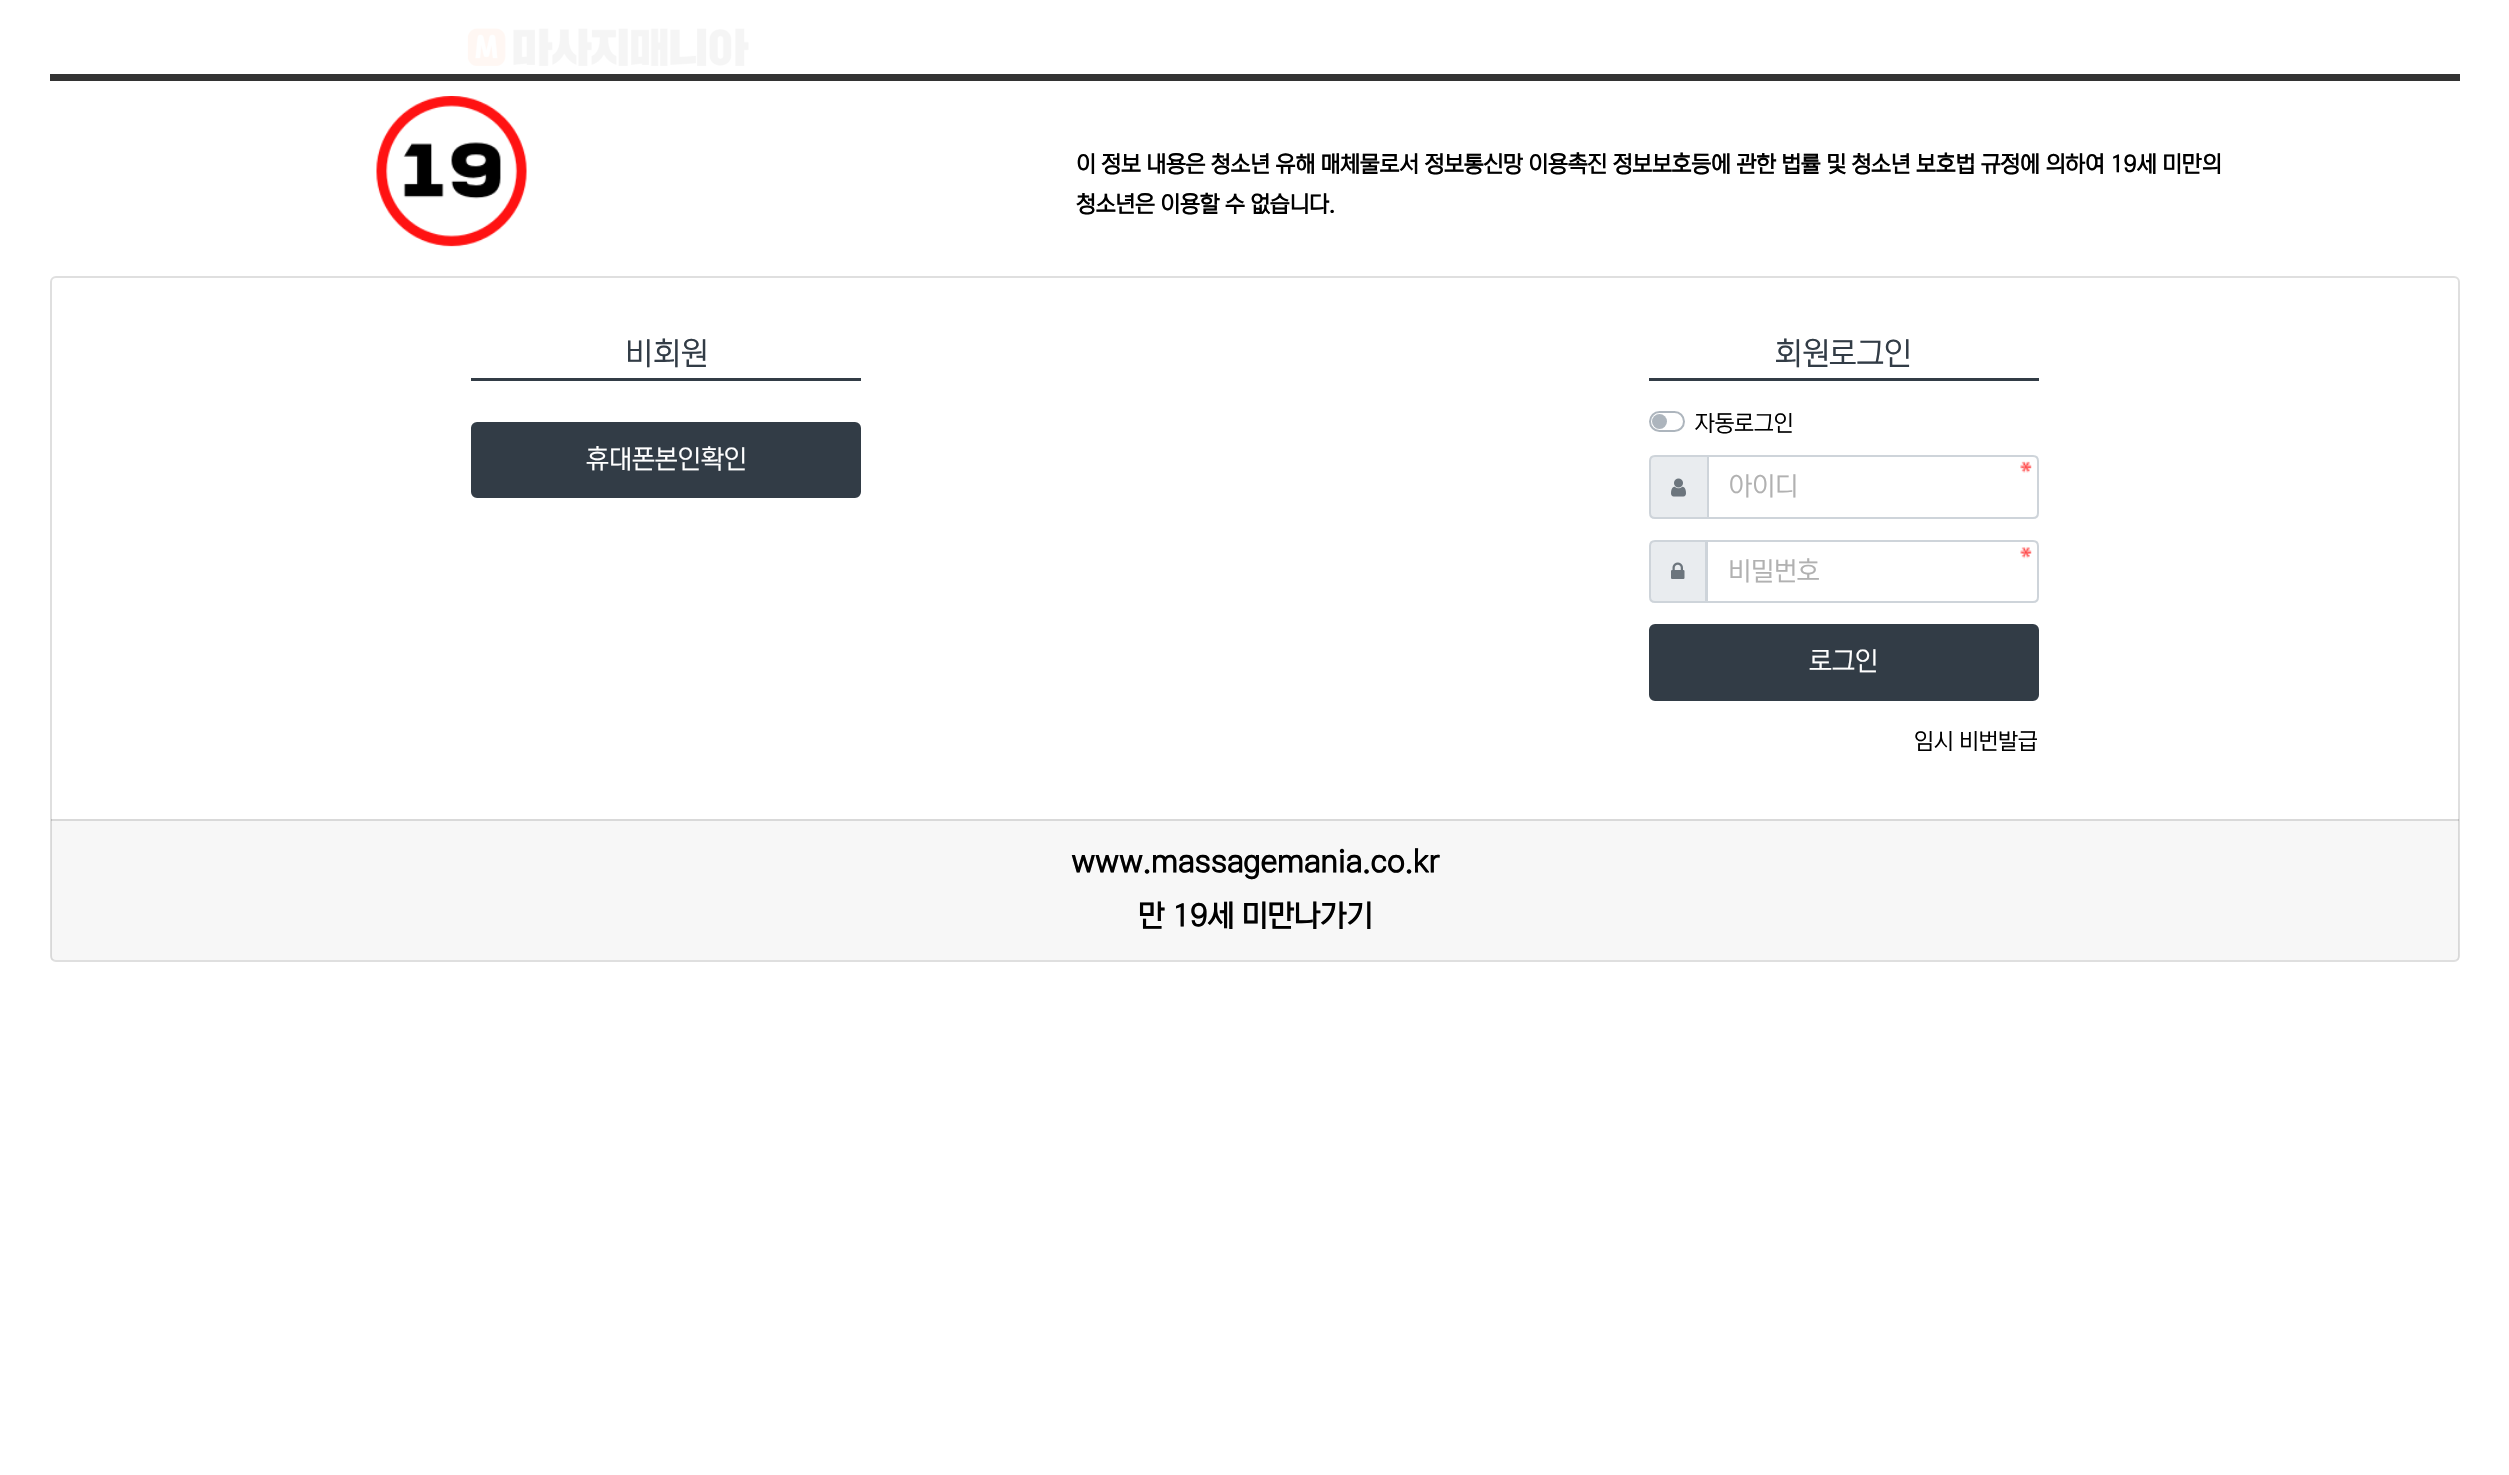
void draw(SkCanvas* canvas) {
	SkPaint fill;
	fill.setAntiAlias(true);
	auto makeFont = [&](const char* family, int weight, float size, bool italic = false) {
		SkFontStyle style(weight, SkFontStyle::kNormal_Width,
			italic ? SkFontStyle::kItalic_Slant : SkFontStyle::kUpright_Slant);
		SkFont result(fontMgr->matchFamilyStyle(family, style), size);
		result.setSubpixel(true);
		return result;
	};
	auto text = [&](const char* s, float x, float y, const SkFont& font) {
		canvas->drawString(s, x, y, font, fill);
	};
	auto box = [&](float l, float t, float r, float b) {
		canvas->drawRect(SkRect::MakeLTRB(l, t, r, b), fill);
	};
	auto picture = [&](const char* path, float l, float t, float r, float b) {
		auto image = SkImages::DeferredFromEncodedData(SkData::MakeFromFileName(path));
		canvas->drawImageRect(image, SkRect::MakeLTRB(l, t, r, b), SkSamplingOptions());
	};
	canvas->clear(0xFFFFFFFF);
	picture("image0.png", 467, 28, 749, 66);
	fill.setColor(0xFF333333);
	box(50, 74, 2460, 81);
	picture("image1.png", 376, 96, 527, 247);
	fill.setStyle(SkPaint::kStroke_Style);
	fill.setStrokeWidth(2);
	fill.setColor(0xFFDFDFDF);
	canvas->drawRoundRect(SkRect::MakeLTRB(51, 277, 2459, 961), 5, 5, fill);
	fill.setStyle(SkPaint::kFill_Style);
	fill.setColor(0xFF323C46);
	box(471, 378, 861, 381);
	canvas->drawRoundRect(SkRect::MakeLTRB(472, 423, 860, 497), 5, 5, fill);
	fill.setStyle(SkPaint::kStroke_Style);
	canvas->drawRoundRect(SkRect::MakeLTRB(472, 423, 860, 497), 5, 5, fill);
	fill.setStyle(SkPaint::kFill_Style);
	box(1649, 378, 2039, 381);
	fill.setStyle(SkPaint::kStroke_Style);
	fill.setColor(0xFFADB5BD);
	canvas->drawRoundRect(SkRect::MakeLTRB(1650, 412, 1684, 431), 9.5f, 9.5f, fill);
	fill.setStyle(SkPaint::kFill_Style);
	canvas->drawCircle(1659.5f, 421.5f, 7.5f, fill);
	fill.setColor(0xFFE9ECEF);
	canvas->drawPath(SkPathBuilder().moveTo(1655, 456).lineTo(1708, 456).lineTo(1708, 518).lineTo(1655, 518).cubicTo(1652, 518, 1650, 516, 1650, 513).lineTo(1650, 461).cubicTo(1650, 458, 1652, 456, 1655, 456).close().detach(), fill);
	fill.setStyle(SkPaint::kStroke_Style);
	fill.setColor(0xFFCED4DA);
	canvas->drawPath(SkPathBuilder().moveTo(1655, 456).lineTo(1708, 456).lineTo(1708, 518).lineTo(1655, 518).cubicTo(1652, 518, 1650, 516, 1650, 513).lineTo(1650, 461).cubicTo(1650, 458, 1652, 456, 1655, 456).close().detach(), fill);
	picture("image2.png", 1671, 478, 1686, 497);
	picture("image3.png", 2020, 461, 2032, 473);
	canvas->drawPath(SkPathBuilder().moveTo(1708, 456).lineTo(2033, 456).cubicTo(2036, 456, 2038, 458, 2038, 461).lineTo(2038, 513).cubicTo(2038, 516, 2036, 518, 2033, 518).lineTo(1708, 518).close().detach(), fill);
	fill.setStyle(SkPaint::kFill_Style);
	fill.setColor(0xFFE9ECEF);
	canvas->drawPath(SkPathBuilder().moveTo(1655, 541).lineTo(1706, 541).lineTo(1706, 602).lineTo(1655, 602).cubicTo(1652, 602, 1650, 600, 1650, 597).lineTo(1650, 546).cubicTo(1650, 543, 1652, 541, 1655, 541).close().detach(), fill);
	fill.setStyle(SkPaint::kStroke_Style);
	fill.setColor(0xFFCED4DA);
	canvas->drawPath(SkPathBuilder().moveTo(1655, 541).lineTo(1706, 541).lineTo(1706, 602).lineTo(1655, 602).cubicTo(1652, 602, 1650, 600, 1650, 597).lineTo(1650, 546).cubicTo(1650, 543, 1652, 541, 1655, 541).close().detach(), fill);
	picture("image4.png", 1671, 562, 1685, 579);
	picture("image5.png", 2020, 547, 2032, 559);
	canvas->drawPath(SkPathBuilder().moveTo(1707, 541).lineTo(2033, 541).cubicTo(2036, 541, 2038, 543, 2038, 546).lineTo(2038, 597).cubicTo(2038, 600, 2036, 602, 2033, 602).lineTo(1707, 602).close().detach(), fill);
	fill.setStyle(SkPaint::kFill_Style);
	fill.setColor(0xFF323C46);
	canvas->drawRoundRect(SkRect::MakeLTRB(1650, 625, 2038, 700), 5, 5, fill);
	fill.setStyle(SkPaint::kStroke_Style);
	canvas->drawRoundRect(SkRect::MakeLTRB(1650, 625, 2038, 700), 5, 5, fill);
	fill.setStyle(SkPaint::kFill_Style);
	fill.setColor(0x08000000);
	box(51, 819, 2459, 960);
	fill.setColor(0x1F000000);
	box(51, 819, 2459, 821);
	auto font1 = makeFont("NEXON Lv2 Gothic", 700, 22.5f);
	fill.setColor(0xFF000000);
	text("이 정보 내용은 청소년 유해 매체물로서 정보통신망 이용촉진 정보보호등에 관한 법률 및 청소년 보호법 규정에 의하여 19세 미만의", 1076, 171, font1);
	text("청소년은 이용할 수 없습니다.", 1076, 211, font1);
	auto font2 = makeFont("NEXON Lv2 Gothic", 400, 31.5f);
	fill.setColor(0xFF323C46);
	text("비회원", 625, 363, font2);
	auto font3 = makeFont("NEXON Lv2 Gothic", 400, 26.25f);
	fill.setColor(0xFFFFFFFF);
	text("휴대폰본인확인", 586, 467, font3);
	fill.setColor(0xFF323C46);
	text("회원로그인", 1774, 363, font2);
	auto font4 = makeFont("NEXON Lv2 Gothic", 400, 22.5f);
	fill.setColor(0xFF000000);
	text("자동로그인", 1695, 430, font4);
	fill.setColor(0xFFB1B1B1);
	text("아이디", 1729, 494, font3);
	text("비밀번호", 1728, 579, font3);
	fill.setColor(0xFFFFFFFF);
	text("로그인", 1809, 669, font3);
	fill.setColor(0xFF000000);
	text("임시 비번발급", 1914, 748, font4);
	auto font5 = makeFont("NEXON Lv2 Gothic", 700, 30);
	text("www.massagemania.co.kr", 1071, 871, font5);
	text("만 19세 미만나가기", 1138, 925, font5);
}
